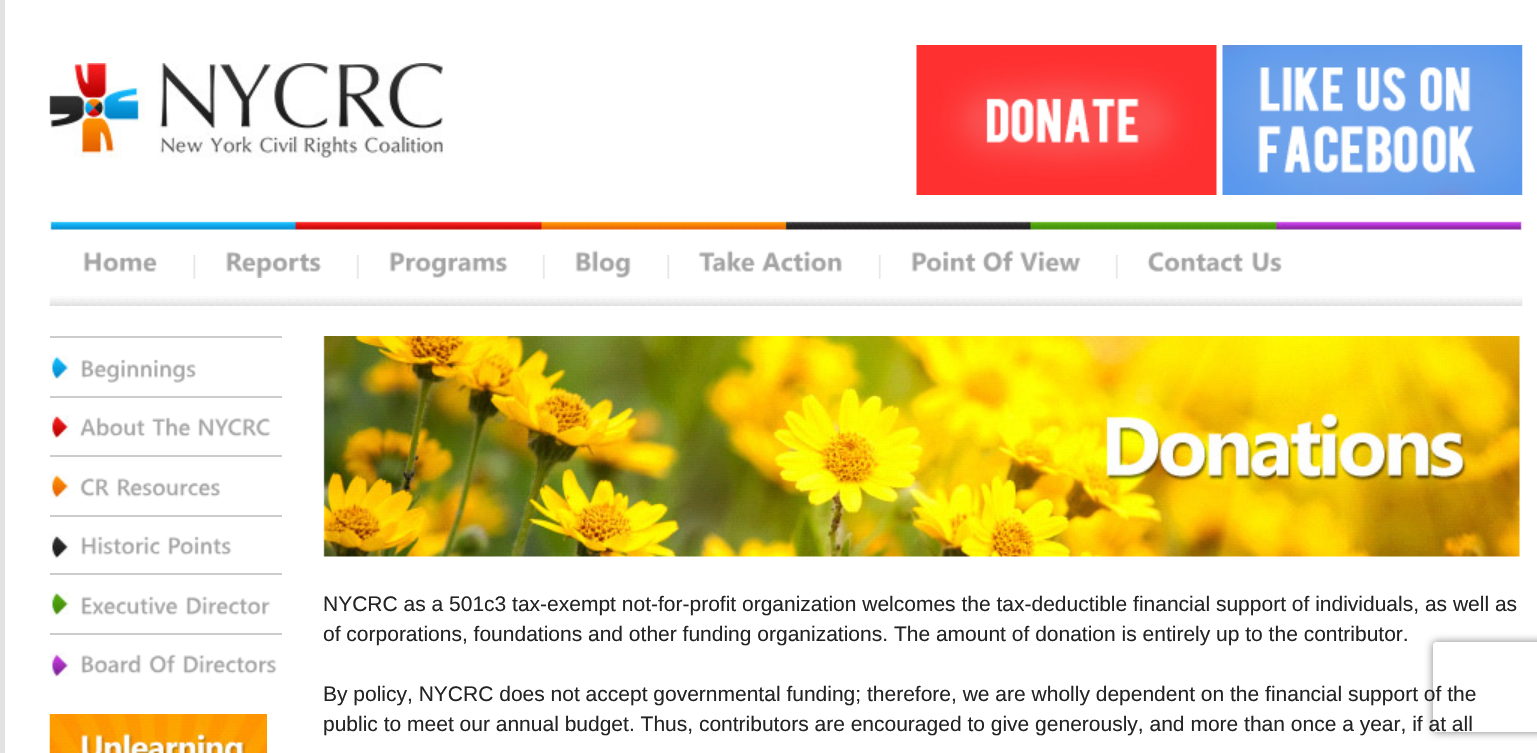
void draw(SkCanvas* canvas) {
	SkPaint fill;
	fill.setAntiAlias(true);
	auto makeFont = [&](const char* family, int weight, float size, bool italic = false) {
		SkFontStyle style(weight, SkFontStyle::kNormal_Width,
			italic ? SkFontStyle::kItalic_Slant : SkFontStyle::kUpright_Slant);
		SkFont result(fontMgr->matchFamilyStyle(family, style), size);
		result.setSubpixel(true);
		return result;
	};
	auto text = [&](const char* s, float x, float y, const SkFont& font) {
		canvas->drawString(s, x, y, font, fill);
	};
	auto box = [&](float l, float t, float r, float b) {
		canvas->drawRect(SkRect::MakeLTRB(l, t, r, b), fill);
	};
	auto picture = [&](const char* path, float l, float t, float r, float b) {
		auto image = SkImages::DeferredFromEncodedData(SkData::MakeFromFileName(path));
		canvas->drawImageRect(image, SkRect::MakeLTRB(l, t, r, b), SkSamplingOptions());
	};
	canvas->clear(0xFFFFFFFF);
	fill.setColor(0xFFE2E2E2);
	box(0, 0, 5, 753);
	picture("image0.png", 49, 220, 1523, 231);
	picture("image1.png", 49, 63, 443, 158);
	picture("image2.png", 916, 45, 1217, 195);
	picture("image3.png", 1222, 45, 1523, 195);
	picture("image4.png", 49, 296, 1523, 306);
	picture("image5.png", 83, 251, 157, 272);
	picture("image6.png", 193, 255, 196, 279);
	picture("image7.png", 226, 251, 322, 278);
	picture("image8.png", 356, 255, 359, 279);
	picture("image9.png", 389, 251, 508, 278);
	picture("image8.png", 542, 255, 545, 279);
	picture("image10.png", 575, 250, 631, 278);
	picture("image6.png", 667, 255, 670, 279);
	picture("image11.png", 698, 250, 755, 272);
	picture("image12.png", 761, 250, 842, 272);
	picture("image13.png", 878, 255, 881, 279);
	picture("image14.png", 911, 250, 976, 272);
	picture("image15.png", 982, 250, 1014, 272);
	picture("image16.png", 1019, 250, 1081, 272);
	picture("image8.png", 1115, 255, 1118, 279);
	picture("image17.png", 1147, 251, 1244, 272);
	picture("image18.png", 1252, 251, 1282, 272);
	picture("image19.png", 50, 355, 69, 380);
	fill.setColor(0xFFCCCCCC);
	box(50, 336, 282, 338);
	picture("image20.png", 81, 359, 196, 383);
	picture("image21.png", 50, 415, 69, 438);
	box(50, 396, 282, 398);
	picture("image22.png", 79, 417, 146, 437);
	picture("image23.png", 151, 417, 191, 437);
	picture("image24.png", 198, 418, 271, 437);
	picture("image25.png", 50, 474, 69, 498);
	box(50, 455, 282, 457);
	picture("image26.png", 80, 478, 110, 497);
	picture("image27.png", 117, 478, 221, 497);
	picture("image28.png", 51, 535, 69, 559);
	box(50, 515, 282, 517);
	picture("image29.png", 81, 536, 161, 556);
	picture("image30.png", 168, 536, 232, 556);
	picture("image31.png", 50, 592, 69, 615);
	box(50, 573, 282, 575);
	picture("image32.png", 81, 596, 178, 616);
	picture("image33.png", 186, 596, 271, 616);
	picture("image34.png", 49, 652, 69, 677);
	box(50, 633, 282, 635);
	picture("image35.png", 81, 654, 142, 674);
	picture("image36.png", 149, 654, 176, 674);
	picture("image37.png", 183, 655, 277, 674);
	picture("image38.png", 49, 714, 267, 753);
	picture("image39.png", 322, 336, 1521, 557);
	canvas->save();
	canvas->clipPath(SkPathBuilder(SkPathFillType::kEvenOdd).moveTo(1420, 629).lineTo(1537, 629).lineTo(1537, 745).lineTo(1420, 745).close().moveTo(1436, 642).lineTo(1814, 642).cubicTo(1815.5f, 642, 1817, 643.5f, 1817, 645).lineTo(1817, 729).cubicTo(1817, 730.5f, 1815.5f, 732, 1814, 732).lineTo(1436, 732).cubicTo(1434.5f, 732, 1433, 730.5f, 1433, 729).lineTo(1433, 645).cubicTo(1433, 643.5f, 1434.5f, 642, 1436, 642).close().detach(), true);
	fill.setColor(0xFF808080);
	fill.setMaskFilter(SkMaskFilter::MakeBlur(kNormal_SkBlurStyle, 4));
	canvas->drawRoundRect(SkRect::MakeLTRB(1433, 642, 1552, 732), 3, 3, fill);
	fill.setMaskFilter(nullptr);
	canvas->restore();
	auto font1 = makeFont("Liberation Sans", 400, 21);
	fill.setColor(0xFF242424);
	text("NYCRC as a 501c3 tax-exempt not-for-profit organization welcomes the tax-deductible financial support of individuals, as well as", 323, 611, font1);
	text("of corporations, foundations and other funding organizations. The amount of donation is entirely up to the contributor.", 323, 641, font1);
	text("By policy, NYCRC does not accept governmental funding; therefore, we are wholly dependent on the financial support of the", 323, 701, font1);
	text("public to meet our annual budget. Thus, contributors are encouraged to give generously, and more than once a year, if at all", 323, 731, font1);
}
